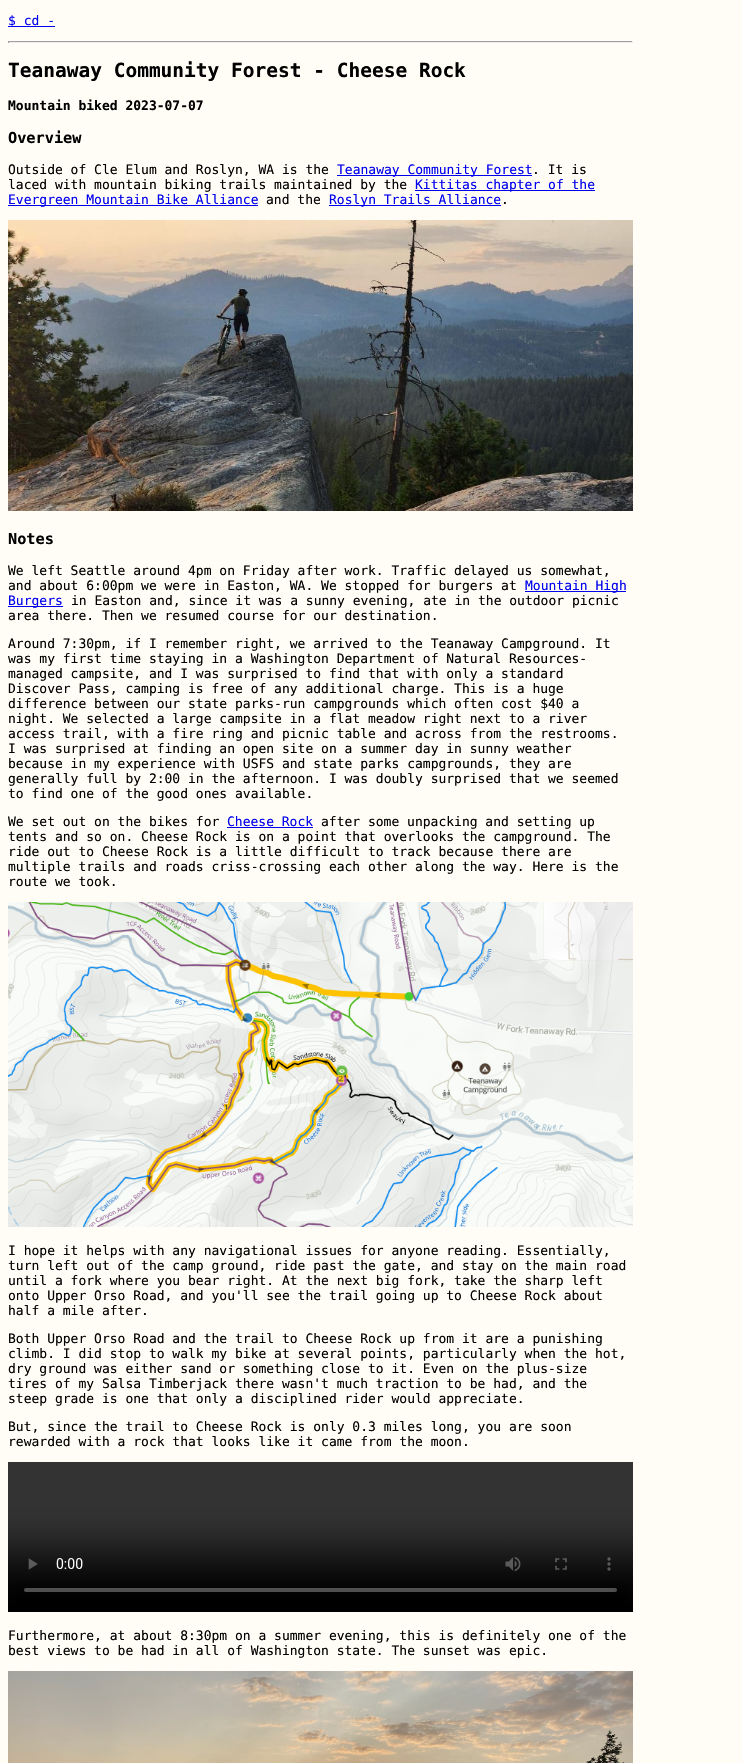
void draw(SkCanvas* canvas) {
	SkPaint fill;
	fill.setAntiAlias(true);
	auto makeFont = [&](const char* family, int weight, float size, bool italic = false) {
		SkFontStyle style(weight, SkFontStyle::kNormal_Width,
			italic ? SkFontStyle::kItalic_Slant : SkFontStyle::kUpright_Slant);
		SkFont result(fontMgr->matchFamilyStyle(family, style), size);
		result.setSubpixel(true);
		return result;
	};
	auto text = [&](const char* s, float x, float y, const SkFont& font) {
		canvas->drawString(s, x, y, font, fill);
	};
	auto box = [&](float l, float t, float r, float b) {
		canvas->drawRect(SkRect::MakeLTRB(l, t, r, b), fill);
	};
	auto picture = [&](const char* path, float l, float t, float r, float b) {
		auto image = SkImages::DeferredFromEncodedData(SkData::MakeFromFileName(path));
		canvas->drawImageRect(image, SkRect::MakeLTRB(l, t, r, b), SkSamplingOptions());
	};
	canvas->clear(0xFFFFFDF5);
	fill.setColor(0xFF0000EE);
	box(8, 26, 55, 27);
	fill.setColor(0xFF9F9F9F);
	box(8, 41, 633, 42);
	fill.setColor(0xFFEEEEEE);
	box(632, 41, 633, 43);
	box(8, 42, 633, 43);
	fill.setColor(0xFF9F9F9F);
	box(8, 41, 9, 43);
	fill.setColor(0xFF0000EE);
	box(337, 175, 532, 176);
	box(415, 190, 595, 191);
	box(8, 205, 258, 206);
	box(329, 205, 501, 206);
	picture("image0.png", 8, 220, 633, 511);
	box(525, 591, 626, 592);
	box(8, 606, 63, 607);
	box(227, 827, 313, 828);
	picture("image1.png", 8, 902, 633, 1227);
	picture("image2.png", 8, 1462, 633, 1612);
	picture("image3.png", 8, 1671, 633, 1763);
	auto font1 = makeFont("DejaVu Sans Mono", 400, 13);
	text("$ cd -", 8, 25, font1);
	auto font2 = makeFont("DejaVu Sans Mono", 700, 19.5f);
	fill.setColor(0xFF000000);
	text("Teanaway Community Forest - Cheese Rock", 8, 77, font2);
	auto font3 = makeFont("DejaVu Sans Mono", 700, 13);
	text("Mountain biked 2023-07-07", 8, 110, font3);
	auto font4 = makeFont("DejaVu Sans Mono", 700, 15.25f);
	text("Overview", 8, 143, font4);
	text("Outside of Cle Elum and Roslyn, WA is the", 8, 174, font1);
	fill.setColor(0xFF0000EE);
	text("Teanaway Community Forest", 337, 174, font1);
	fill.setColor(0xFF000000);
	text(". It is", 532, 174, font1);
	text("laced with mountain biking trails maintained by the", 8, 189, font1);
	fill.setColor(0xFF0000EE);
	text("Kittitas chapter of the", 415, 189, font1);
	text("Evergreen Mountain Bike Alliance", 8, 204, font1);
	fill.setColor(0xFF000000);
	text("and the", 266, 204, font1);
	fill.setColor(0xFF0000EE);
	text("Roslyn Trails Alliance", 329, 204, font1);
	fill.setColor(0xFF000000);
	text(".", 501, 204, font1);
	text("Notes", 8, 544, font4);
	text("We left Seattle around 4pm on Friday after work. Traffic delayed us somewhat,", 8, 575, font1);
	text("and about 6:00pm we were in Easton, WA. We stopped for burgers at", 8, 590, font1);
	fill.setColor(0xFF0000EE);
	text("Mountain High", 525, 590, font1);
	text("Burgers", 8, 605, font1);
	fill.setColor(0xFF000000);
	text("in Easton and, since it was a sunny evening, ate in the outdoor picnic", 71, 605, font1);
	text("area there. Then we resumed course for our destination.", 8, 620, font1);
	text("Around 7:30pm, if I remember right, we arrived to the Teanaway Campground. It", 8, 648, font1);
	text("was my first time staying in a Washington Department of Natural Resources-", 8, 663, font1);
	text("managed campsite, and I was surprised to find that with only a standard", 8, 678, font1);
	text("Discover Pass, camping is free of any additional charge. This is a huge", 8, 693, font1);
	text("difference between our state parks-run campgrounds which often cost $40 a", 8, 708, font1);
	text("night. We selected a large campsite in a flat meadow right next to a river", 8, 723, font1);
	text("access trail, with a fire ring and picnic table and across from the restrooms.", 8, 738, font1);
	text("I was surprised at finding an open site on a summer day in sunny weather", 8, 753, font1);
	text("because in my experience with USFS and state parks campgrounds, they are", 8, 768, font1);
	text("generally full by 2:00 in the afternoon. I was doubly surprised that we seemed", 8, 783, font1);
	text("to find one of the good ones available.", 8, 798, font1);
	text("We set out on the bikes for", 8, 826, font1);
	fill.setColor(0xFF0000EE);
	text("Cheese Rock", 227, 826, font1);
	fill.setColor(0xFF000000);
	text("after some unpacking and setting up", 321, 826, font1);
	text("tents and so on. Cheese Rock is on a point that overlooks the campground. The", 8, 841, font1);
	text("ride out to Cheese Rock is a little difficult to track because there are", 8, 856, font1);
	text("multiple trails and roads criss-crossing each other along the way. Here is the", 8, 871, font1);
	text("route we took.", 8, 886, font1);
	text("I hope it helps with any navigational issues for anyone reading. Essentially,", 8, 1255, font1);
	text("turn left out of the camp ground, ride past the gate, and stay on the main road", 8, 1270, font1);
	text("until a fork where you bear right. At the next big fork, take the sharp left", 8, 1285, font1);
	text("onto Upper Orso Road, and you'll see the trail going up to Cheese Rock about", 8, 1300, font1);
	text("half a mile after.", 8, 1315, font1);
	text("Both Upper Orso Road and the trail to Cheese Rock up from it are a punishing", 8, 1343, font1);
	text("climb. I did stop to walk my bike at several points, particularly when the hot,", 8, 1358, font1);
	text("dry ground was either sand or something close to it. Even on the plus-size", 8, 1373, font1);
	text("tires of my Salsa Timberjack there wasn't much traction to be had, and the", 8, 1388, font1);
	text("steep grade is one that only a disciplined rider would appreciate.", 8, 1403, font1);
	text("But, since the trail to Cheese Rock is only 0.3 miles long, you are soon", 8, 1431, font1);
	text("rewarded with a rock that looks like it came from the moon.", 8, 1446, font1);
	text("Furthermore, at about 8:30pm on a summer evening, this is definitely one of the", 8, 1640, font1);
	text("best views to be had in all of Washington state. The sunset was epic.", 8, 1655, font1);
}
